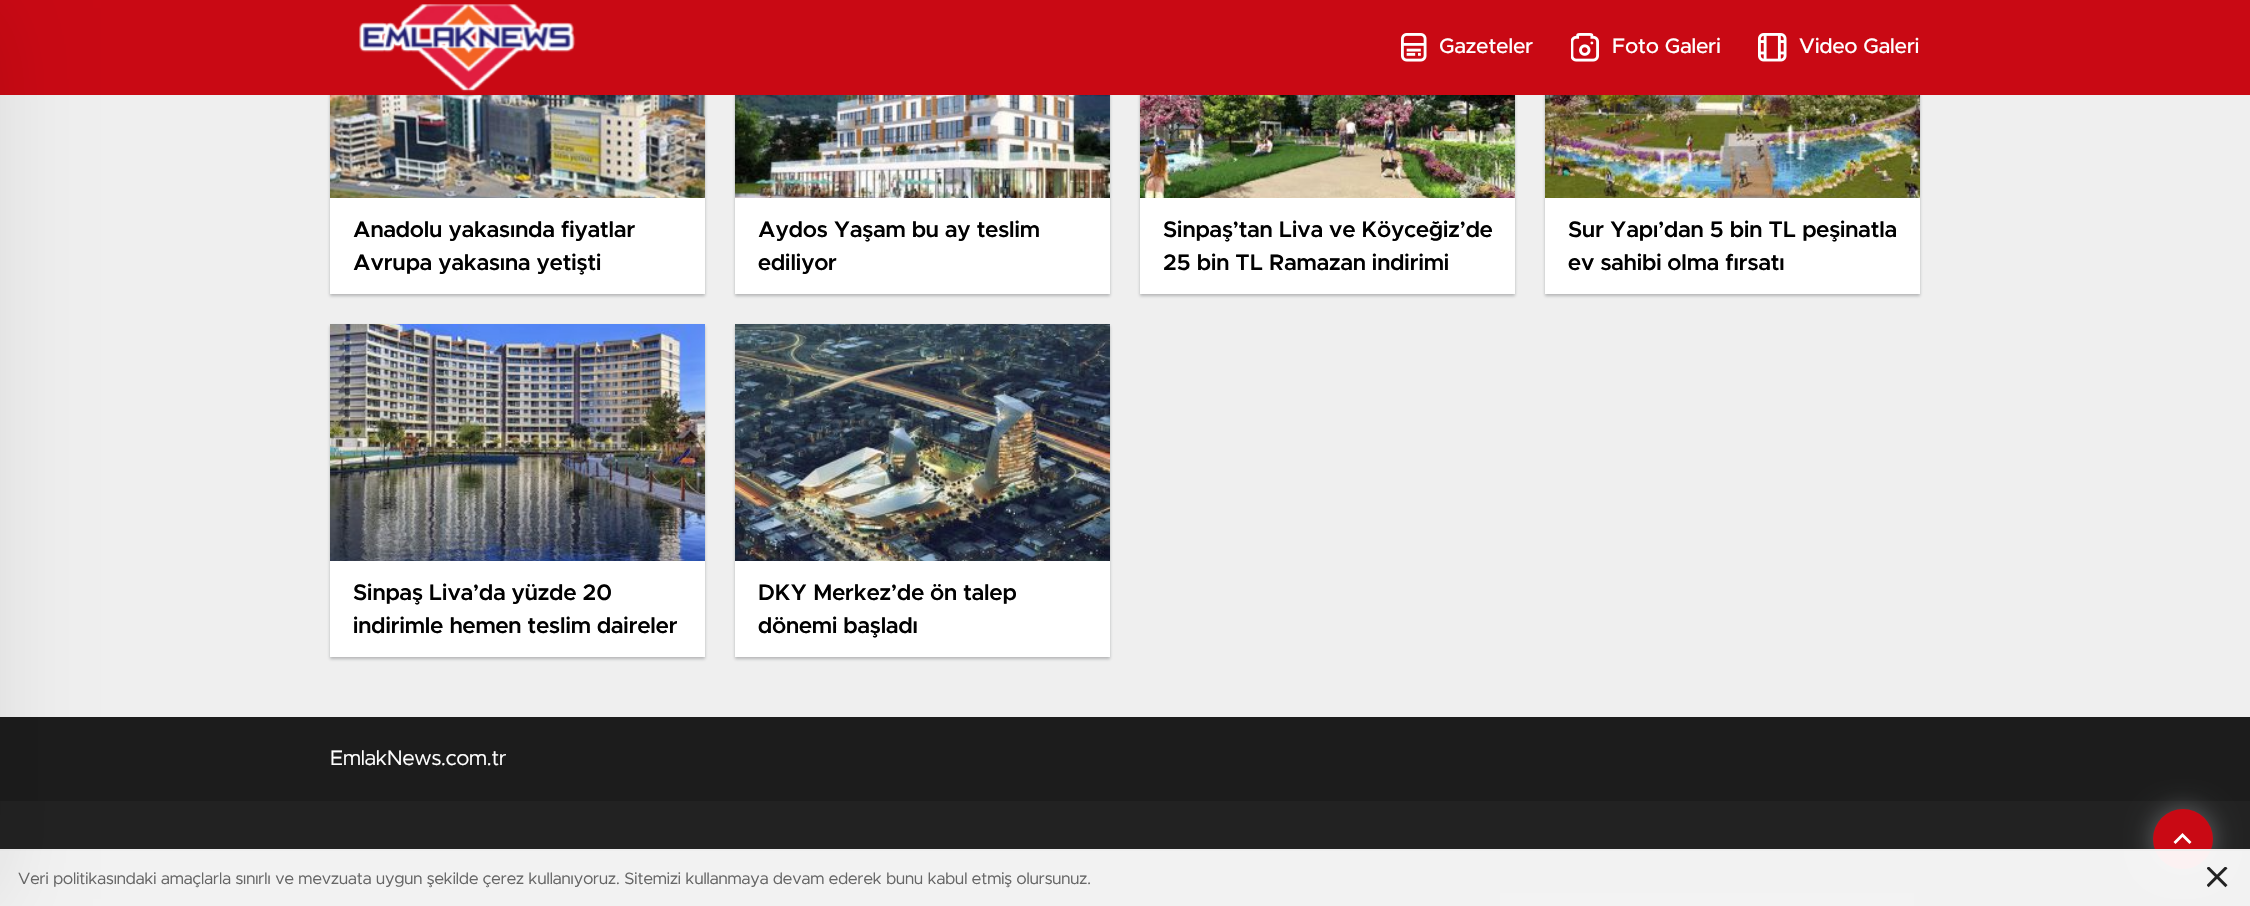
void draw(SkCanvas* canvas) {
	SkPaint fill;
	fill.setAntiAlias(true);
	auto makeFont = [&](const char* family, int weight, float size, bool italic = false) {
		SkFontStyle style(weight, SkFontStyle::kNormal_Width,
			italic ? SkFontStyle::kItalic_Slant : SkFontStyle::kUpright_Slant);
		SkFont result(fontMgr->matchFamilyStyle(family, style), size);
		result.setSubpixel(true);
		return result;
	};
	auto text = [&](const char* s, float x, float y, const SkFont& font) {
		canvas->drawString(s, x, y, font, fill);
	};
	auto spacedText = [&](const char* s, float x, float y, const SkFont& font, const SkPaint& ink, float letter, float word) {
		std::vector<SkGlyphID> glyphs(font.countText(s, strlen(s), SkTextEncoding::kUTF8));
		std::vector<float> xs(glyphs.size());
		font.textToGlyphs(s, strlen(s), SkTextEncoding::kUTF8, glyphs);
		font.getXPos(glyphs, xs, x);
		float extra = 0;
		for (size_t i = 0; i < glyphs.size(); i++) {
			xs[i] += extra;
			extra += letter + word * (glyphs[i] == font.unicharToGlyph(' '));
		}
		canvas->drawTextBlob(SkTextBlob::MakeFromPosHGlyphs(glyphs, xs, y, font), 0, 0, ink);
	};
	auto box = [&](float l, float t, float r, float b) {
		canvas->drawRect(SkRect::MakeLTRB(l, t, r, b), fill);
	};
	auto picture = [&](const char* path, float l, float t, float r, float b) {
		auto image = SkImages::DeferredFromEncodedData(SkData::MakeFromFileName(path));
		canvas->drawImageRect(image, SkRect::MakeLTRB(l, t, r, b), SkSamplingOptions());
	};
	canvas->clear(0xFFEFEFEF);
	fill.setColor(0x45111519);
	fill.setMaskFilter(SkMaskFilter::MakeBlur(kNormal_SkBlurStyle, 1.5f));
	canvas->drawRect(SkRect::MakeLTRB(330, -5, 705, 296), fill);
	fill.setMaskFilter(nullptr);
	fill.setMaskFilter(SkMaskFilter::MakeBlur(kNormal_SkBlurStyle, 1.5f));
	canvas->drawRect(SkRect::MakeLTRB(735, -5, 1110, 296), fill);
	fill.setMaskFilter(nullptr);
	fill.setMaskFilter(SkMaskFilter::MakeBlur(kNormal_SkBlurStyle, 1.5f));
	canvas->drawRect(SkRect::MakeLTRB(1140, -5, 1515, 296), fill);
	fill.setMaskFilter(nullptr);
	fill.setMaskFilter(SkMaskFilter::MakeBlur(kNormal_SkBlurStyle, 1.5f));
	canvas->drawRect(SkRect::MakeLTRB(1545, -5, 1920, 296), fill);
	fill.setMaskFilter(nullptr);
	fill.setColor(0xFFC90914);
	box(0, 0, 2250, 95);
	fill.setColor(0xFF222222);
	box(0, 801, 2250, 906);
	fill.setColor(0xFF1C1C1C);
	box(0, 717, 2250, 801);
	fill.setColor(0xFF2B2B2B);
	box(1500, 893, 1914, 906);
	fill.setColor(0x8A9DA1A4);
	fill.setMaskFilter(SkMaskFilter::MakeBlur(kNormal_SkBlurStyle, 13.5f));
	canvas->drawRoundRect(SkRect::MakeLTRB(2153, 809, 2213, 869), 30, 30, fill);
	fill.setMaskFilter(nullptr);
	fill.setColor(0xFFC90914);
	canvas->drawCircle(2183, 839, 30, fill);
	fill.setColor(0xF0FFFFFF);
	box(0, 851, 2250, 906);
	fill.setColor(0xFFEEEEEE);
	box(0, 849, 2250, 851);
	fill.setColor(0x1A000000);
	fill.setMaskFilter(SkMaskFilter::MakeBlur(kNormal_SkBlurStyle, 45));
	canvas->drawRect(SkRect::MakeLTRB(-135, 8, -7, 899), fill);
	fill.setMaskFilter(nullptr);
	picture("image0.png", 359, 4, 576, 92);
	picture("image1.png", 1401, 33, 1427, 62);
	picture("image2.png", 1571, 33, 1599, 62);
	picture("image3.png", 1758, 33, 1787, 62);
	fill.setColor(0xFFFFFFFF);
	box(330, 198, 705, 294);
	picture("image4.png", 330, 95, 705, 198);
	box(735, 198, 1110, 294);
	picture("image5.png", 735, 95, 1110, 198);
	box(1140, 198, 1515, 294);
	picture("image6.png", 1140, 95, 1515, 198);
	box(1545, 198, 1920, 294);
	picture("image7.png", 1545, 95, 1920, 198);
	fill.setColor(0x45111519);
	fill.setMaskFilter(SkMaskFilter::MakeBlur(kNormal_SkBlurStyle, 1.5f));
	canvas->drawRect(SkRect::MakeLTRB(330, 326, 705, 659), fill);
	fill.setMaskFilter(nullptr);
	fill.setColor(0xFFFFFFFF);
	box(330, 561, 705, 657);
	picture("image8.png", 330, 324, 705, 561);
	fill.setColor(0x45111519);
	fill.setMaskFilter(SkMaskFilter::MakeBlur(kNormal_SkBlurStyle, 1.5f));
	canvas->drawRect(SkRect::MakeLTRB(735, 326, 1110, 659), fill);
	fill.setMaskFilter(nullptr);
	fill.setColor(0xFFFFFFFF);
	box(735, 561, 1110, 657);
	picture("image9.png", 735, 324, 1110, 561);
	picture("image10.png", 2207, 867, 2228, 888);
	canvas->drawPath(SkPathBuilder().moveTo(2182.5f, 833).lineTo(2173.5f, 842).lineTo(2175.5f, 844).lineTo(2182.5f, 837).lineTo(2189.5f, 844).lineTo(2191.5f, 842).close().detach(), fill);
	auto font1 = makeFont("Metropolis", 500, 21);
	spacedText("Gazeteler", 1439, 53, font1, fill, 0.1f, 0);
	spacedText("Foto Galeri", 1612, 53, font1, fill, 0.1f, 0);
	spacedText("Video Galeri", 1799, 53, font1, fill, 0.1f, 0);
	auto font2 = makeFont("Metropolis", 600, 22.5f);
	fill.setColor(0xFF010101);
	text("Anadolu yakasında fiyatlar", 353, 237, font2);
	text("Avrupa yakasına yetişti", 353, 270, font2);
	text("Aydos Yaşam bu ay teslim", 758, 237, font2);
	text("ediliyor", 758, 270, font2);
	text("Sinpaş’tan Liva ve Köyceğiz’de", 1163, 237, font2);
	text("25 bin TL Ramazan indirimi", 1163, 270, font2);
	text("Sur Yapı’dan 5 bin TL peşinatla", 1568, 237, font2);
	text("ev sahibi olma fırsatı", 1568, 270, font2);
	text("Sinpaş Liva’da yüzde 20", 353, 600, font2);
	text("indirimle hemen teslim daireler", 353, 633, font2);
	text("DKY Merkez’de ön talep", 758, 600, font2);
	text("dönemi başladı", 758, 633, font2);
	auto font3 = makeFont("Metropolis", 400, 21);
	fill.setColor(0xFFFFFFFF);
	spacedText("EmlakNews.com.tr", 330, 765, font3, fill, -0.1f, 0);
	auto font4 = makeFont("Metropolis", 400, 16.5f);
	fill.setColor(0xFF666666);
	text("Veri politikasındaki amaçlarla sınırlı ve mevzuata uygun şekilde çerez kullanıyoruz. Sitemizi kullanmaya devam ederek bunu kabul etmiş olursunuz.", 18, 884, font4);
}
